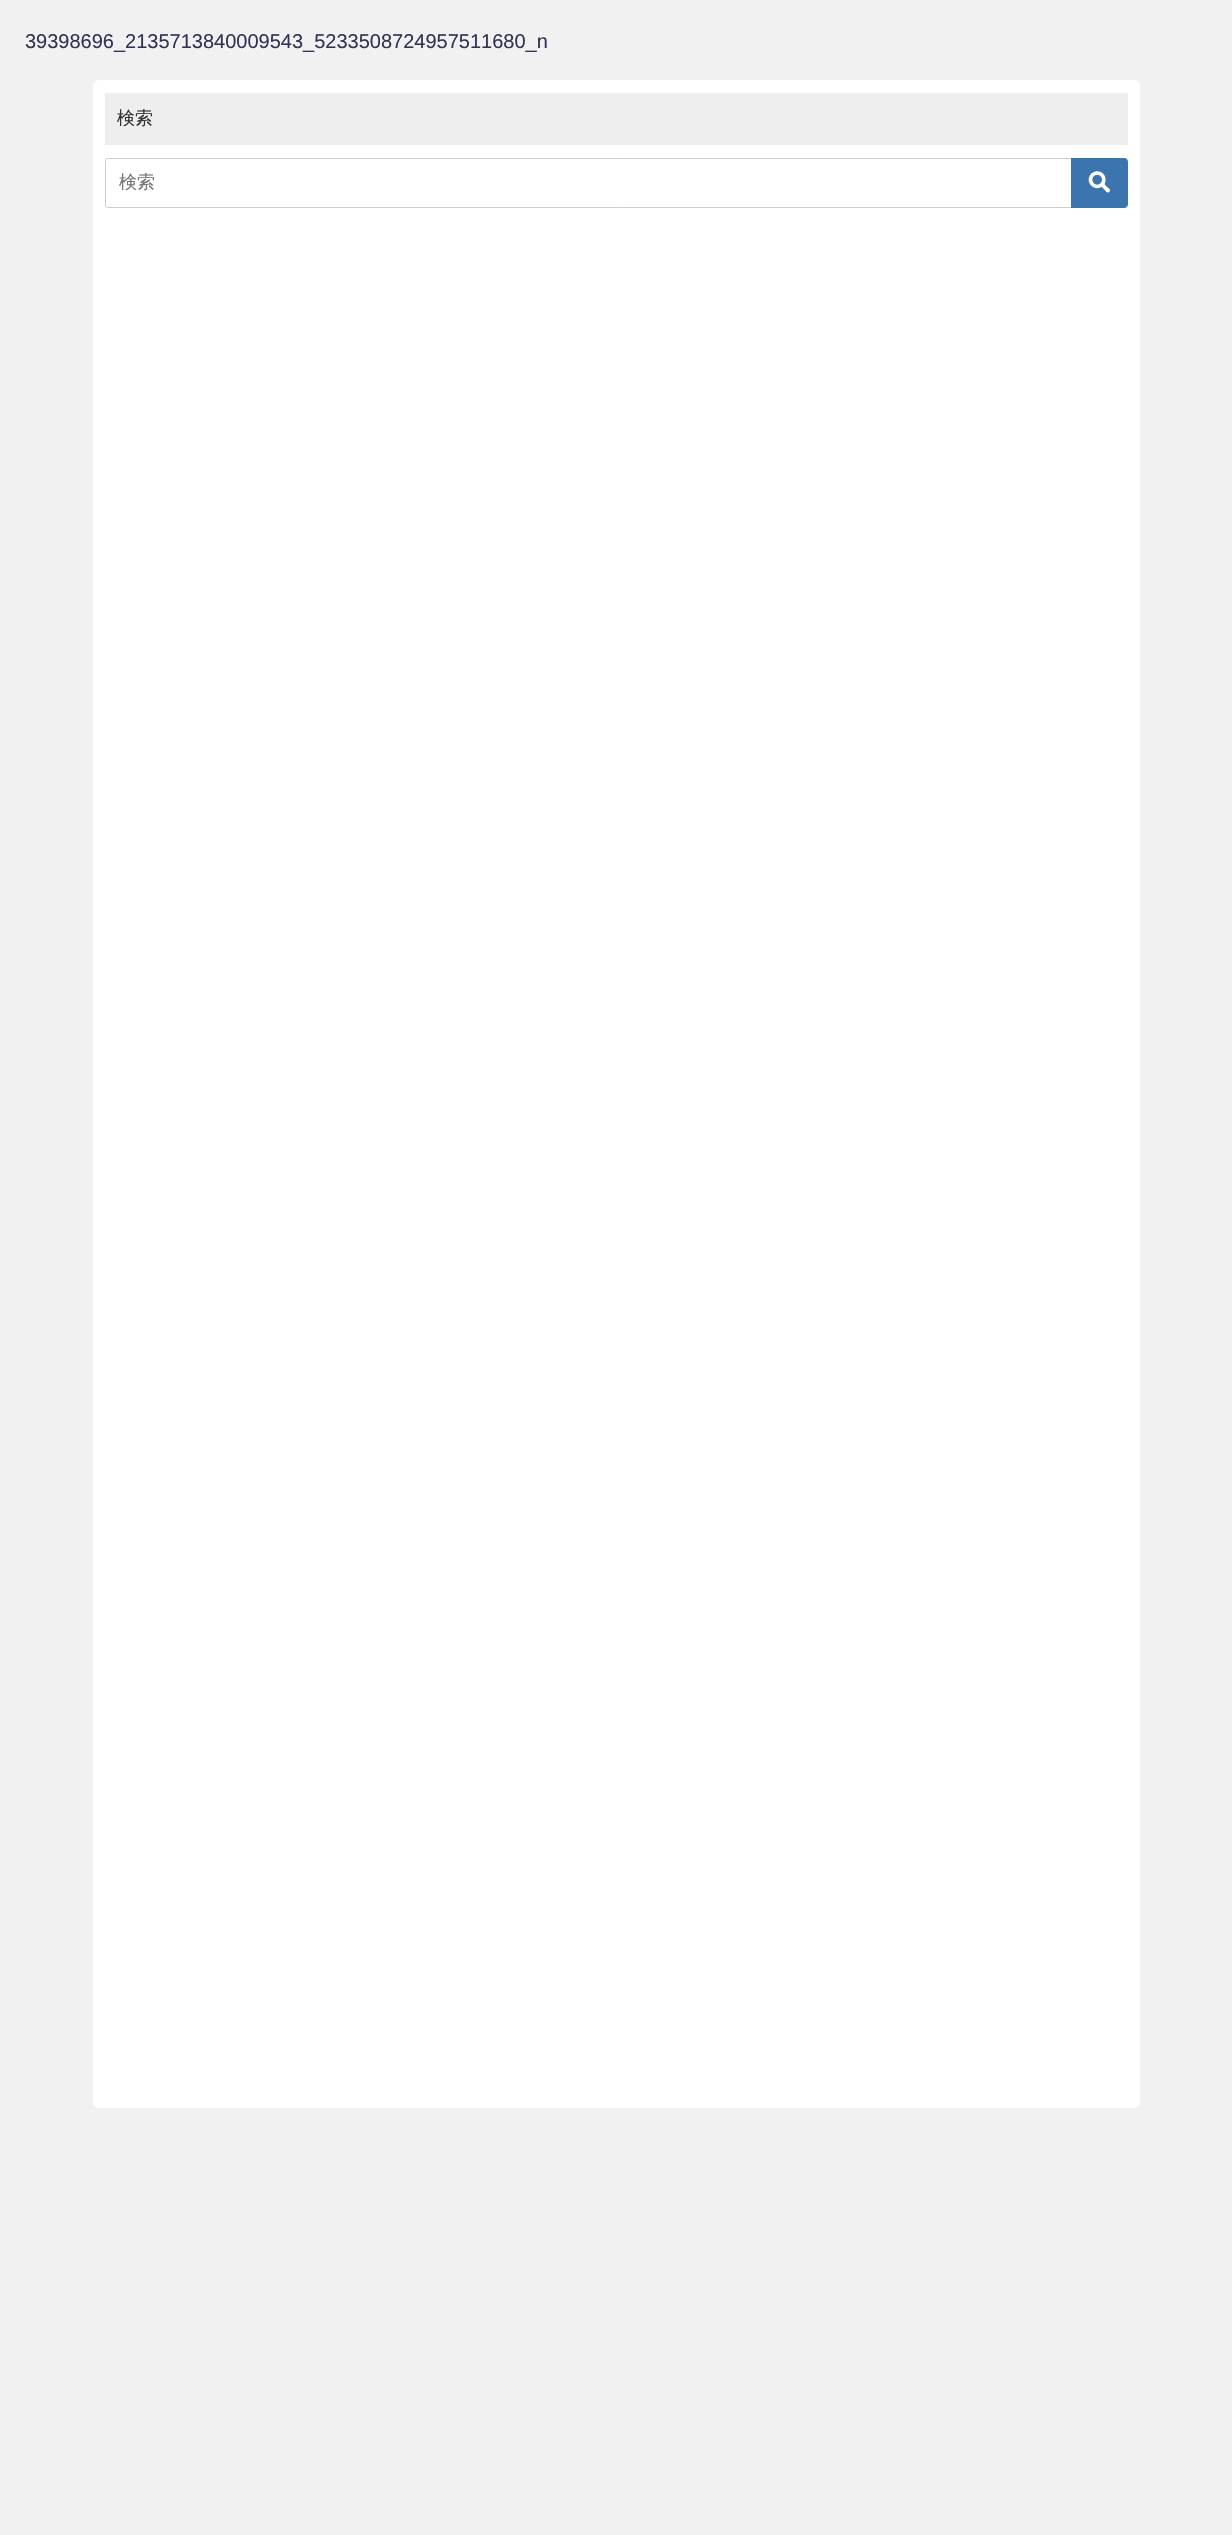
void draw(SkCanvas* canvas) {
	SkPaint fill;
	fill.setAntiAlias(true);
	auto makeFont = [&](const char* family, int weight, float size, bool italic = false) {
		SkFontStyle style(weight, SkFontStyle::kNormal_Width,
			italic ? SkFontStyle::kItalic_Slant : SkFontStyle::kUpright_Slant);
		SkFont result(fontMgr->matchFamilyStyle(family, style), size);
		result.setSubpixel(true);
		return result;
	};
	auto text = [&](const char* s, float x, float y, const SkFont& font) {
		canvas->drawString(s, x, y, font, fill);
	};
	auto box = [&](float l, float t, float r, float b) {
		canvas->drawRect(SkRect::MakeLTRB(l, t, r, b), fill);
	};
	auto roundBox = [&](float l, float t, float r, float b, float radius) {
		canvas->drawRoundRect(SkRect::MakeLTRB(l, t, r, b), radius, radius, fill);
	};
	auto picture = [&](const char* path, float l, float t, float r, float b) {
		auto image = SkImages::DeferredFromEncodedData(SkData::MakeFromFileName(path));
		canvas->drawImageRect(image, SkRect::MakeLTRB(l, t, r, b), SkSamplingOptions());
	};
	canvas->clear(0xFFF1F1F1);
	fill.setColor(0xFFFFFFFF);
	roundBox(93, 80, 1140, 2108, 6);
	fill.setColor(0xFFEEEEEE);
	box(105, 93, 1128, 145);
	fill.setStyle(SkPaint::kStroke_Style);
	fill.setStrokeWidth(1);
	fill.setColor(0xFFCCCCCC);
	canvas->drawRoundRect(SkRect::MakeLTRB(105.5f, 158.5f, 1127.5f, 207.5f), 2, 2, fill);
	fill.setStyle(SkPaint::kFill_Style);
	fill.setColor(0xFF3C74AD);
	canvas->drawPath(SkPathBuilder().moveTo(1071, 158).lineTo(1124, 158).cubicTo(1126, 158, 1128, 160, 1128, 162).lineTo(1128, 204).cubicTo(1128, 206, 1126, 208, 1124, 208).lineTo(1071, 208).close().detach(), fill);
	picture("image0.png", 1088, 171, 1110, 193);
	auto font1 = makeFont("Liberation Sans", 400, 20);
	fill.setColor(0xFF333355);
	text("39398696_2135713840009543_5233508724957511680_n", 25, 48, font1);
	auto font2 = makeFont("WenQuanYi Zen Hei", 500, 18);
	fill.setColor(0xFF333333);
	text("検索", 117, 124, font2);
	fill.setColor(0xFF757575);
	text("検索", 119, 188, font2);
}
